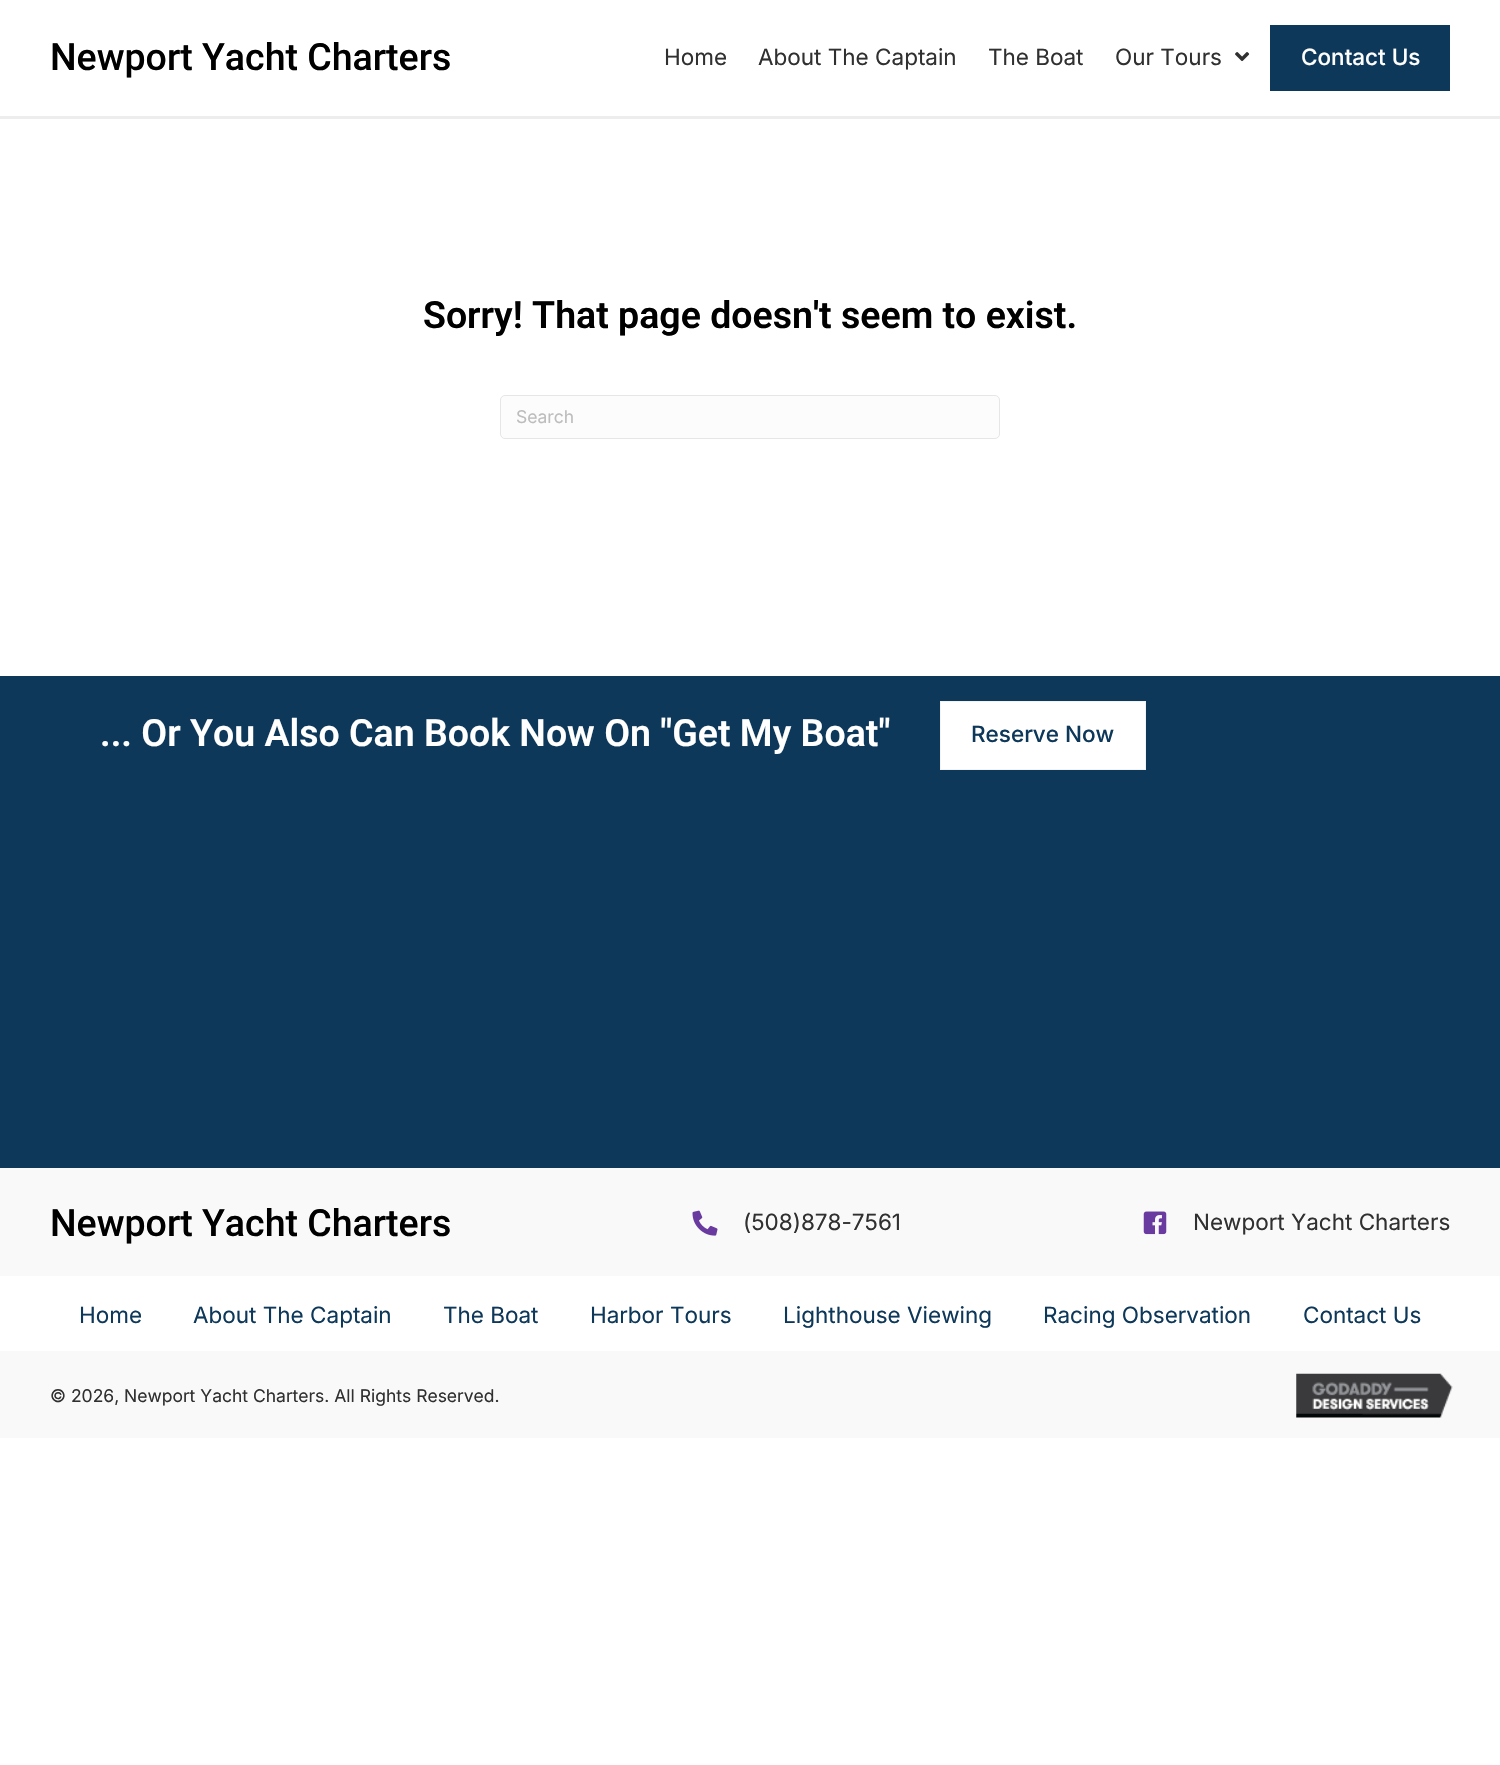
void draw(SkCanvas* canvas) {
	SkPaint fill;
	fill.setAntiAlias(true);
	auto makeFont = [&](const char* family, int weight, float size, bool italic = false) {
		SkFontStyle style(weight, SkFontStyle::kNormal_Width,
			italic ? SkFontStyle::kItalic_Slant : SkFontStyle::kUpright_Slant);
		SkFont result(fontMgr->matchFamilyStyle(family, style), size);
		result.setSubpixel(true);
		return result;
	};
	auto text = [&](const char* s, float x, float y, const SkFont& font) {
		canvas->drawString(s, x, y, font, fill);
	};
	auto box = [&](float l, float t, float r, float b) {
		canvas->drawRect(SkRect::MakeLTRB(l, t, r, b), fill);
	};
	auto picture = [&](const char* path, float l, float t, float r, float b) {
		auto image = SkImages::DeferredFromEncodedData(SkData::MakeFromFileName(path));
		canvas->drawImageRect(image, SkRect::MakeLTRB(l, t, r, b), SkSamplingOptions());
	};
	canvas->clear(0xFFFFFFFF);
	fill.setColor(0xFFEDEDED);
	box(0, 116, 1500, 119);
	picture("image0.png", 1235, 52, 1250, 62);
	fill.setColor(0xFF0D385A);
	box(1270, 25, 1450, 91);
	fill.setColor(0xFFFCFCFC);
	canvas->drawRoundRect(SkRect::MakeLTRB(500.5f, 395.5f, 999.5f, 438.5f), 4.5f, 4.5f, fill);
	fill.setStyle(SkPaint::kStroke_Style);
	fill.setStrokeWidth(1);
	fill.setColor(0xFFE6E6E6);
	canvas->drawRoundRect(SkRect::MakeLTRB(500.5f, 395.5f, 999.5f, 438.5f), 4.5f, 4.5f, fill);
	fill.setStyle(SkPaint::kFill_Style);
	fill.setColor(0xFF0D385A);
	box(0, 676, 1500, 1168);
	fill.setColor(0xFFFFFFFF);
	canvas->drawRect(SkRect::MakeLTRB(940.5f, 701.5f, 1145.5f, 769.5f), fill);
	fill.setStyle(SkPaint::kStroke_Style);
	fill.setColor(0xFFF3F3F3);
	canvas->drawRect(SkRect::MakeLTRB(940.5f, 701.5f, 1145.5f, 769.5f), fill);
	fill.setStyle(SkPaint::kFill_Style);
	fill.setColor(0xFFF9F9F9);
	box(0, 1168, 1500, 1276);
	picture("image1.png", 692, 1210, 718, 1236);
	picture("image2.png", 1143, 1211, 1167, 1235);
	box(0, 1351, 1500, 1438);
	picture("image3.png", 1296, 1373, 1453, 1418);
	auto font1 = makeFont("Roboto", 500, 37.5f);
	fill.setColor(0xFF000000);
	text("Newport Yacht Charters", 50, 70, font1);
	auto font2 = makeFont("Inter", 400, 22.5f);
	fill.setColor(0xFF303030);
	text("Home", 664, 65, font2);
	text("About The Captain", 758, 65, font2);
	text("The Boat", 988, 65, font2);
	text("Our Tours", 1115, 65, font2);
	auto font3 = makeFont("Inter", 500, 22.5f);
	fill.setColor(0xFFFFFFFF);
	text("Contact Us", 1301, 65, font3);
	auto font4 = makeFont("Roboto", 600, 37.5f);
	fill.setColor(0xFF000000);
	text("Sorry! That page doesn't seem to exist.", 423, 328, font4);
	auto font5 = makeFont("Inter", 400, 17.5f);
	fill.setColor(0xFFBDBDBD);
	text("Search", 516, 423, font5);
	fill.setColor(0xFFFFFFFF);
	text("... Or You Also Can Book Now On \"Get My Boat\"", 100, 746, font4);
	fill.setColor(0xFF0D385A);
	text("Reserve Now", 971, 742, font3);
	fill.setColor(0xFF000000);
	text("Newport Yacht Charters", 50, 1236, font1);
	fill.setColor(0xFF303030);
	text("(508)878-7561", 743, 1230, font2);
	text("Newport Yacht Charters", 1193, 1230, font2);
	fill.setColor(0xFF0D385A);
	text("Home", 79, 1323, font2);
	text("About The Captain", 193, 1323, font2);
	text("The Boat", 443, 1323, font2);
	text("Harbor Tours", 590, 1323, font2);
	text("Lighthouse Viewing", 783, 1323, font2);
	text("Racing Observation", 1043, 1323, font2);
	text("Contact Us", 1303, 1323, font2);
	fill.setColor(0xFF303030);
	text("© 2026, Newport Yacht Charters. All Rights Reserved.", 50, 1402, font5);
}
